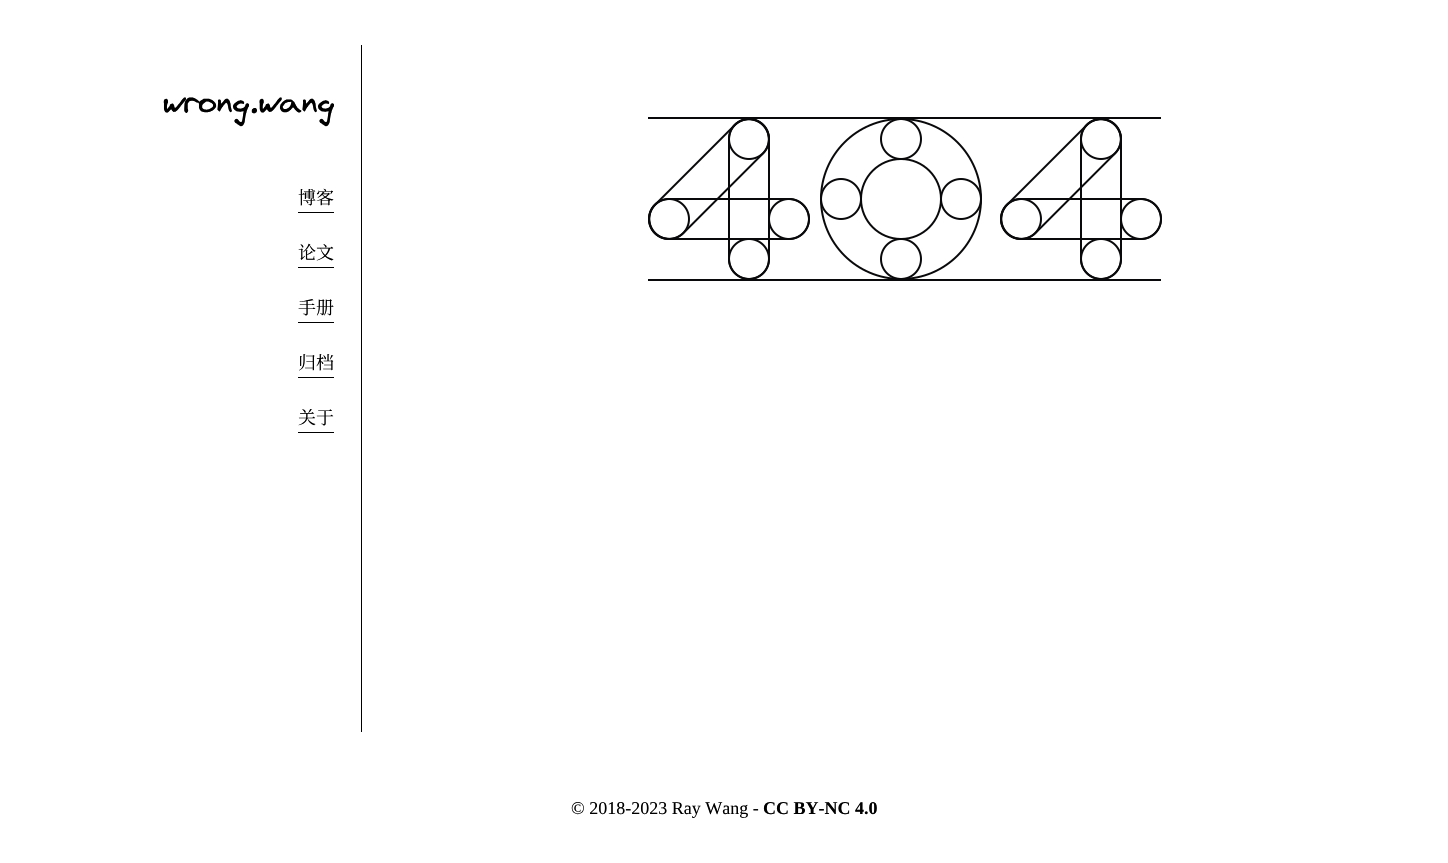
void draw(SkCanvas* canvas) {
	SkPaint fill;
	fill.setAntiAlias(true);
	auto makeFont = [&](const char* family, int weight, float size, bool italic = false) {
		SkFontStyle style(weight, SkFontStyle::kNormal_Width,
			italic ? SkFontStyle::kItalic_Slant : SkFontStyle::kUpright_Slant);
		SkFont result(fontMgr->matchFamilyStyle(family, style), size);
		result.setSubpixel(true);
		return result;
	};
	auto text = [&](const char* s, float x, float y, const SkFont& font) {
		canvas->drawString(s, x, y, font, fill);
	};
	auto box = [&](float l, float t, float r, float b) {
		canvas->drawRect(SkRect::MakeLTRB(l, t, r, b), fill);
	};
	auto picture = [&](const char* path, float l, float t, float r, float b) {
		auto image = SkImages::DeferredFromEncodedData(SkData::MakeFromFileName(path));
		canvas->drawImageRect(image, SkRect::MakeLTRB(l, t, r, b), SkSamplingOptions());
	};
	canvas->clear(0xFFFFFFFF);
	fill.setColor(0xFF000000);
	box(361, 45, 362, 732);
	box(298, 212, 334, 213);
	box(298, 267, 334, 268);
	box(298, 322, 334, 323);
	box(298, 377, 334, 378);
	box(298, 432, 334, 433);
	picture("image0.png", 648, 117, 1162, 281);
	auto font1 = makeFont("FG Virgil", 400, 33.75f);
	text("wrong.wang", 163, 112, font1);
	auto font2 = makeFont("Noto Serif CJK SC", 400, 18);
	text("博客", 298, 204, font2);
	text("论文", 298, 259, font2);
	text("手册", 298, 314, font2);
	text("归档", 298, 369, font2);
	text("关于", 298, 424, font2);
	auto font3 = makeFont("Liberation Serif", 400, 18);
	text("© 2018-2023 Ray Wang -", 571, 814, font3);
	auto font4 = makeFont("Liberation Serif", 700, 18);
	text("CC BY-NC 4.0", 763, 814, font4);
}
